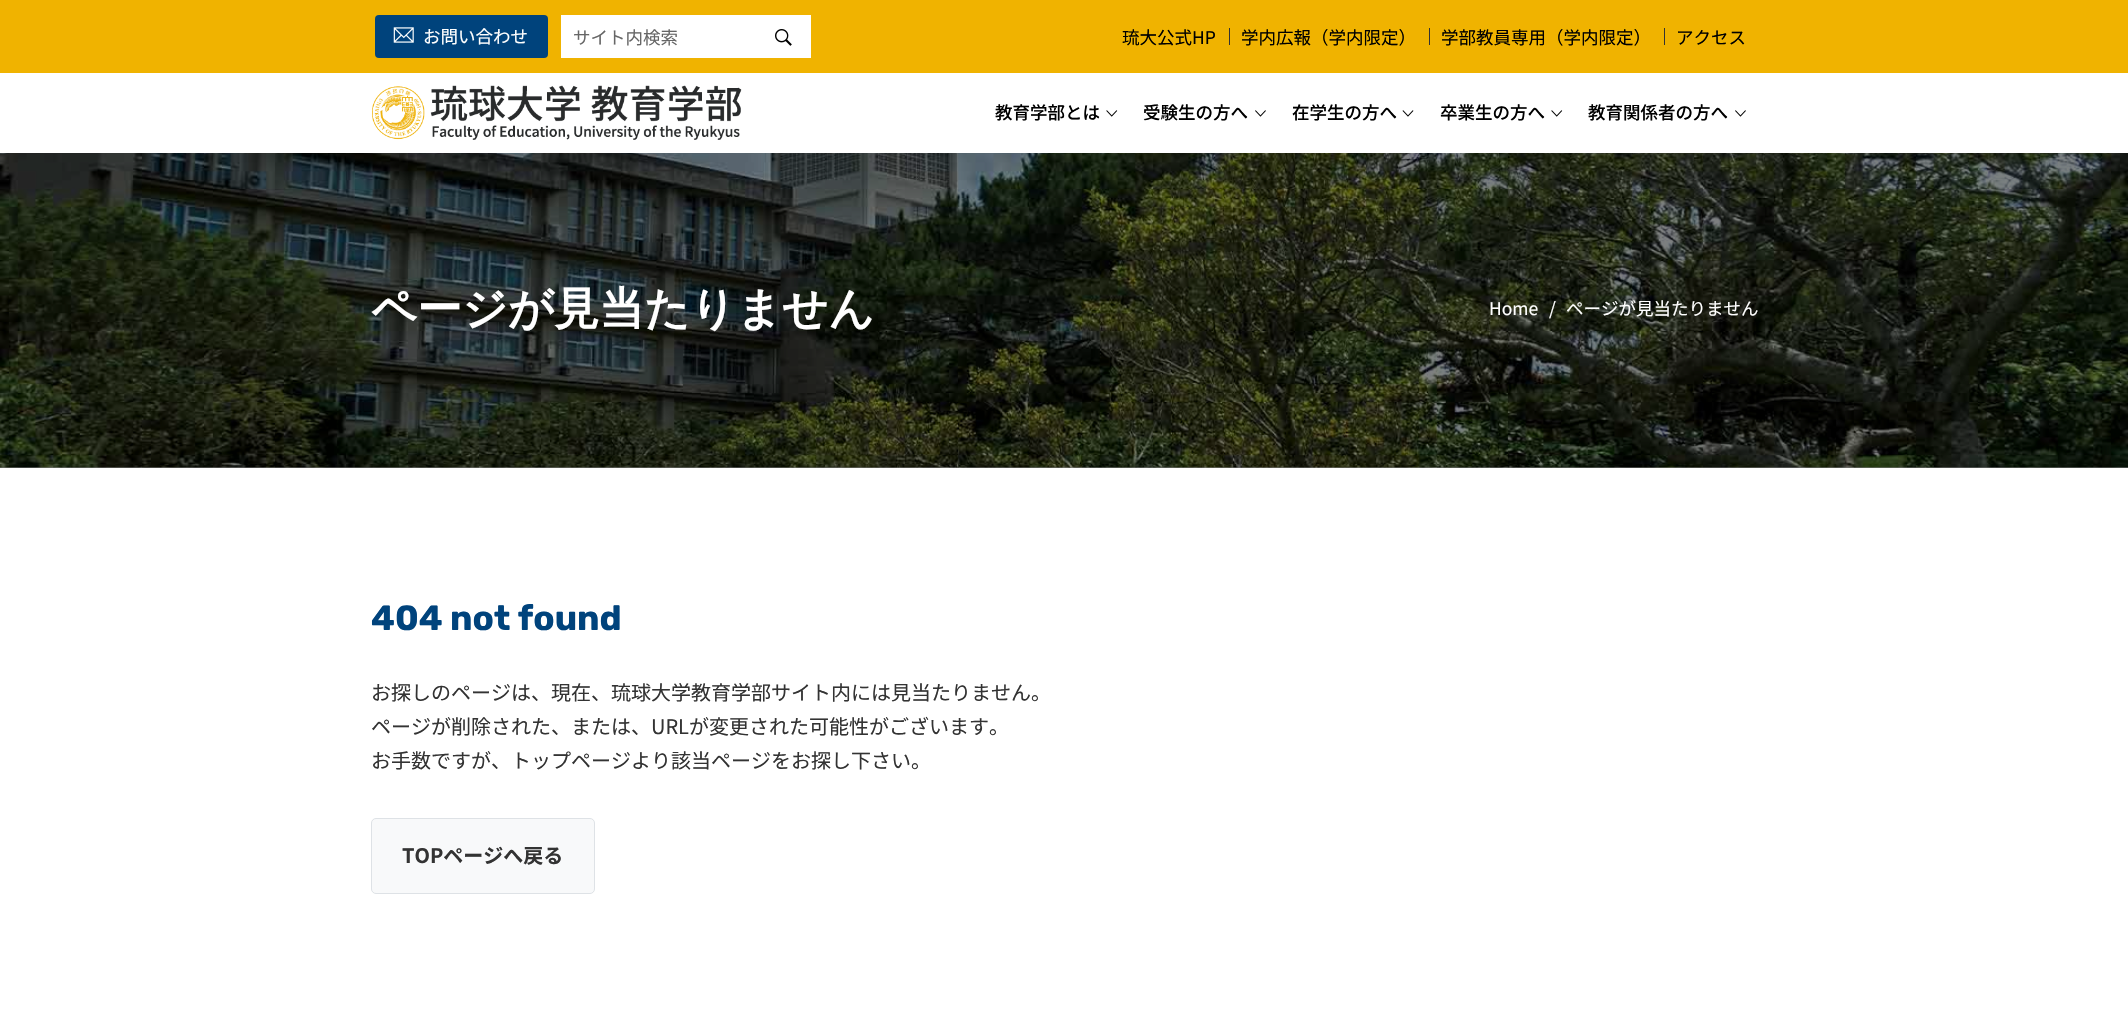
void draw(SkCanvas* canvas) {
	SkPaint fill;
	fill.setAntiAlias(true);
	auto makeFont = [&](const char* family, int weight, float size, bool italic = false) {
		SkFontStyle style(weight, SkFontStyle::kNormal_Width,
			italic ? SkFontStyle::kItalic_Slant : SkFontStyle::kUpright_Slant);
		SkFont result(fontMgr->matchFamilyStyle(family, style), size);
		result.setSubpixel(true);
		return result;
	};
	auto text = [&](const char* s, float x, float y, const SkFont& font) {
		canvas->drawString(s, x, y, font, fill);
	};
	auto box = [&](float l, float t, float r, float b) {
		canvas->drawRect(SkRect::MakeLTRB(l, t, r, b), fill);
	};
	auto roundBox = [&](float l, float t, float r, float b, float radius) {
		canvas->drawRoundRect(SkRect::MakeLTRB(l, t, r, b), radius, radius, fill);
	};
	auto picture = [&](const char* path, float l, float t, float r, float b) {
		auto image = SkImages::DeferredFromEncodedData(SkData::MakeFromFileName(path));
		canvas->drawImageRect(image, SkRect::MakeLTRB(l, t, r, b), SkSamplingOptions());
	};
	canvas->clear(0xFFFFFFFF);
	fill.setColor(0xFF808080);
	box(0, 467, 2128, 468);
	fill.setColor(0xFFF0B300);
	box(0, 0, 2128, 73);
	fill.setColor(0xFF00437C);
	roundBox(375, 15, 548, 58, 4);
	picture("image0.png", 393, 27, 414, 43);
	fill.setColor(0xFFFFFFFF);
	box(561, 15, 811, 58);
	picture("image1.png", 775, 29, 792, 46);
	fill.setColor(0xFF333333);
	box(1229, 28, 1230, 45);
	box(1429, 28, 1430, 45);
	box(1664, 28, 1665, 45);
	picture("image2.png", 372, 85, 742, 140);
	picture("image3.png", 1106, 110, 1118, 117);
	picture("image4.png", 1255, 110, 1266, 117);
	picture("image5.png", 1402, 110, 1414, 117);
	picture("image3.png", 1551, 110, 1563, 117);
	picture("image4.png", 1735, 110, 1746, 117);
	picture("image6.png", 0, 153, 2128, 468);
	fill.setColor(0xFFF8F9FA);
	canvas->drawRoundRect(SkRect::MakeLTRB(371.5f, 818.5f, 594.5f, 893.5f), 4.5f, 4.5f, fill);
	fill.setStyle(SkPaint::kStroke_Style);
	fill.setStrokeWidth(1);
	fill.setColor(0xFFDEE2E6);
	canvas->drawRoundRect(SkRect::MakeLTRB(371.5f, 818.5f, 594.5f, 893.5f), 4.5f, 4.5f, fill);
	auto font1 = makeFont("Noto Sans JP", 400, 17.5f);
	fill.setStyle(SkPaint::kFill_Style);
	fill.setColor(0xFFFFFFFF);
	text("お問い合わせ", 423, 43, font1);
	fill.setColor(0xFF666666);
	text("サイト内検索", 573, 44, font1);
	fill.setColor(0xFF000000);
	text("琉大公式HP", 1122, 44, font1);
	text("学内広報（学内限定）", 1241, 44, font1);
	text("学部教員専用（学内限定）", 1441, 44, font1);
	text("アクセス", 1676, 44, font1);
	auto font2 = makeFont("Noto Sans JP", 500, 17.5f);
	text("教育学部とは", 995, 119, font2);
	text("受験生の方へ", 1143, 119, font2);
	text("在学生の方へ", 1292, 119, font2);
	text("卒業生の方へ", 1440, 119, font2);
	text("教育関係者の方へ", 1588, 119, font2);
	auto font3 = makeFont("WenQuanYi Zen Hei", 700, 45);
	fill.setColor(0xFFFFFFFF);
	text("ページが見当たりません", 371, 324, font3);
	text("Home", 1489, 315, font1);
	text("/", 1549, 315, font1);
	text("ページが見当たりません", 1566, 315, font1);
	auto font4 = makeFont("Rubik", 700, 35);
	fill.setColor(0xFF00437C);
	text("404 not found", 371, 630, font4);
	auto font5 = makeFont("Noto Sans JP", 400, 20);
	fill.setColor(0xFF333333);
	text("お探しのページは、現在、琉球大学教育学部サイト内には見当たりません。", 371, 700, font5);
	text("ページが削除された、または、URLが変更された可能性がございます。", 371, 734, font5);
	text("お手数ですが、トップページより該当ページをお探し下さい。", 371, 768, font5);
	auto font6 = makeFont("Noto Sans JP", 700, 20);
	text("TOPページへ戻る", 402, 863, font6);
}
